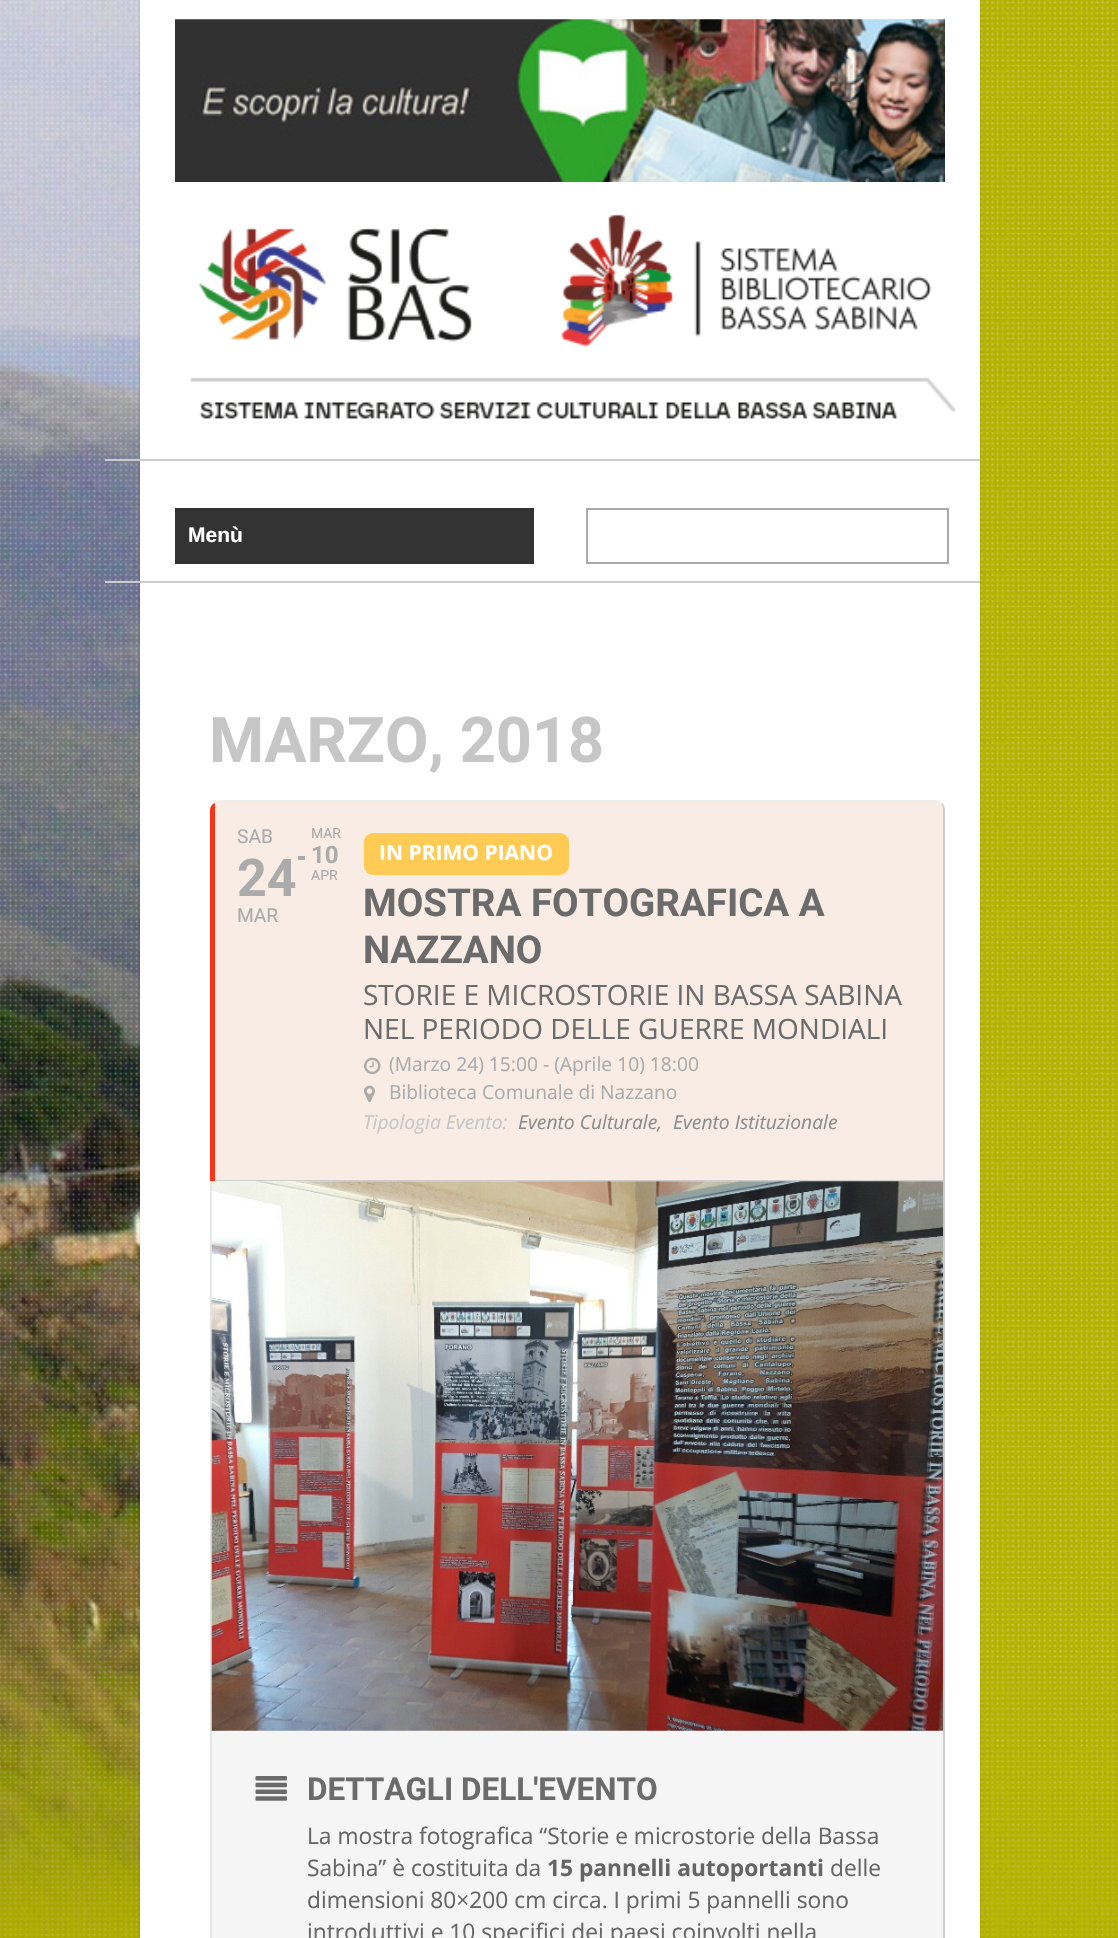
void draw(SkCanvas* canvas) {
	SkPaint fill;
	fill.setAntiAlias(true);
	auto makeFont = [&](const char* family, int weight, float size, bool italic = false) {
		SkFontStyle style(weight, SkFontStyle::kNormal_Width,
			italic ? SkFontStyle::kItalic_Slant : SkFontStyle::kUpright_Slant);
		SkFont result(fontMgr->matchFamilyStyle(family, style), size);
		result.setSubpixel(true);
		return result;
	};
	auto text = [&](const char* s, float x, float y, const SkFont& font) {
		canvas->drawString(s, x, y, font, fill);
	};
	auto box = [&](float l, float t, float r, float b) {
		canvas->drawRect(SkRect::MakeLTRB(l, t, r, b), fill);
	};
	auto roundBox = [&](float l, float t, float r, float b, float radius) {
		canvas->drawRoundRect(SkRect::MakeLTRB(l, t, r, b), radius, radius, fill);
	};
	auto picture = [&](const char* path, float l, float t, float r, float b) {
		auto image = SkImages::DeferredFromEncodedData(SkData::MakeFromFileName(path));
		canvas->drawImageRect(image, SkRect::MakeLTRB(l, t, r, b), SkSamplingOptions());
	};
	canvas->clear(0xFFFFFFFF);
	picture("image0.png", 0, 0, 1118, 1938);
	fill.setColor(0x33000000);
	fill.setMaskFilter(SkMaskFilter::MakeBlur(kNormal_SkBlurStyle, 1));
	canvas->drawRect(SkRect::MakeLTRB(140, 0, 980, 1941), fill);
	fill.setMaskFilter(nullptr);
	fill.setColor(0xFFFFFFFF);
	box(140, 0, 980, 1938);
	picture("image1.png", 175, 19, 945, 182);
	picture("image2.png", 190, 214, 956, 419);
	fill.setColor(0xFFCCCCCC);
	box(105, 459, 980, 461);
	box(105, 581, 980, 583);
	fill.setColor(0xFF333333);
	box(175, 508, 534, 564);
	fill.setStyle(SkPaint::kStroke_Style);
	fill.setStrokeWidth(2);
	fill.setColor(0xFFAAAAAA);
	canvas->drawRect(SkRect::MakeLTRB(587, 509, 948, 563), fill);
	fill.setStyle(SkPaint::kFill_Style);
	fill.setColor(0xFFEFEEEE);
	canvas->drawPath(SkPathBuilder().moveTo(220, 800).lineTo(934, 800).cubicTo(937, 800, 940, 801, 942, 803).lineTo(941, 804).cubicTo(939, 803, 937, 802, 934, 802).lineTo(220, 802).cubicTo(215, 802, 210, 805, 210, 810).cubicTo(210, 804, 215, 800, 220, 800).close().detach(), fill);
	fill.setColor(0xFFCDCDCD);
	canvas->drawPath(SkPathBuilder().moveTo(936, 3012).cubicTo(940, 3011, 943, 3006, 943, 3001).lineTo(943, 810).cubicTo(943, 808, 942, 806, 941, 804).lineTo(942, 803).cubicTo(944, 805, 945, 807, 945, 810).lineTo(945, 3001).cubicTo(945, 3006, 941, 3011, 936, 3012).close().detach(), fill);
	fill.setColor(0xFFF9ECE4);
	canvas->drawPath(SkPathBuilder().moveTo(210, 810).lineTo(210, 1181).lineTo(943, 1181).lineTo(943, 810).cubicTo(943, 806, 941, 803, 937, 802).lineTo(217, 802).cubicTo(213, 803, 210, 806, 210, 810).close().detach(), fill);
	fill.setColor(0xFFF7351B);
	canvas->drawPath(SkPathBuilder().moveTo(210, 810).lineTo(210, 1181).lineTo(215, 1181).lineTo(215, 803).cubicTo(212, 804, 210, 807, 210, 810).close().detach(), fill);
	fill.setColor(0xFFABABAB);
	box(298, 856, 305, 860);
	fill.setColor(0xFFFFCB55);
	roundBox(364, 833, 569, 875, 9);
	picture("image3.png", 364, 1057, 381, 1075);
	picture("image4.png", 364, 1085, 375, 1103);
	fill.setColor(0xFFCDCDCD);
	box(215, 1180, 943, 1181);
	fill.setColor(0xFFF5F5F5);
	canvas->drawPath(SkPathBuilder().moveTo(210, 1181).lineTo(210, 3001).cubicTo(210, 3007, 215, 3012, 220, 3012).lineTo(934, 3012).cubicTo(939, 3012, 942, 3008, 943, 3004).lineTo(943, 1181).close().detach(), fill);
	fill.setColor(0xFFE5E5E5);
	canvas->drawPath(SkPathBuilder().moveTo(210, 1181).lineTo(210, 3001).cubicTo(210, 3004, 211, 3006, 212, 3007).lineTo(212, 1181).close().detach(), fill);
	picture("image5.png", 211, 1181, 944, 1731);
	picture("image6.png", 255, 1776, 287, 1801);
	auto font1 = makeFont("Liberation Sans", 700, 21);
	fill.setColor(0xFFFFFFFF);
	text("Menù", 188, 542, font1);
	auto font2 = makeFont("Roboto", 700, 63);
	fill.setColor(0xFFC6C6C6);
	text("MARZO, 2018", 209, 762, font2);
	auto font3 = makeFont("Roboto", 400, 19.25f);
	fill.setColor(0xFFABABAB);
	text("SAB", 237, 843, font3);
	auto font4 = makeFont("Roboto", 700, 52);
	text("24", 237, 896, font4);
	text("MAR", 237, 922, font3);
	auto font5 = makeFont("Roboto", 400, 14);
	text("MAR", 311, 838, font5);
	auto font6 = makeFont("Roboto", 700, 24);
	text("10", 311, 863, font6);
	text("APR", 311, 880, font5);
	auto font7 = makeFont("Open Sans", 700, 21);
	fill.setColor(0xFFFFFFFF);
	text("IN PRIMO PIANO", 379, 860, font7);
	auto font8 = makeFont("Roboto", 700, 38.5f);
	fill.setColor(0xFF6B6B6B);
	text("MOSTRA FOTOGRAFICA A", 363, 916, font8);
	text("NAZZANO", 363, 963, font8);
	auto font9 = makeFont("Open Sans", 400, 28);
	text("STORIE E MICROSTORIE IN BASSA SABINA", 363, 1005, font9);
	text("NEL PERIODO DELLE GUERRE MONDIALI", 363, 1039, font9);
	auto font10 = makeFont("Open Sans", 400, 19.25f);
	fill.setColor(0xFFABABAB);
	text("(Marzo 24) 15:00 - (Aprile 10) 18:00", 389, 1071, font10);
	text("Biblioteca Comunale di Nazzano", 389, 1099, font10);
	auto font11 = makeFont("Open Sans", 400, 19.25f, true);
	fill.setColor(0xFFC6C6C6);
	text("Tipologia Evento:", 363, 1129, font11);
	fill.setColor(0xFF8C8C8C);
	text("Evento Culturale,", 518, 1129, font11);
	text("Evento Istituzionale", 673, 1129, font11);
	auto font12 = makeFont("Roboto", 700, 31.5f);
	fill.setColor(0xFF6B6B6B);
	text("DETTAGLI DELL'EVENTO", 307, 1800, font12);
	auto font13 = makeFont("Open Sans", 400, 22.75f);
	fill.setColor(0xFF656565);
	text("La mostra fotografica “Storie e microstorie della Bassa", 307, 1844, font13);
	text("Sabina” è costituita da", 307, 1876, font13);
	auto font14 = makeFont("Open Sans", 700, 22.75f);
	text("15 pannelli autoportanti", 547, 1876, font14);
	text("delle", 830, 1876, font13);
	text("dimensioni 80×200 cm circa. I primi 5 pannelli sono", 307, 1908, font13);
	text("introduttivi e 10 specifici dei paesi coinvolti nella", 307, 1940, font13);
	{
		const SkColor colors[] = {0x00F5F5F5, 0x03F5F5F5, 0xFFF5F5F5};
		const float stops[] = {0, 0.01f, 1};
		const SkPoint ends[] = {{578, 1932}, {578, 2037}};
		fill.setShader(SkGradientShader::MakeLinear(ends, colors, stops, 3, SkTileMode::kClamp));
		fill.setAlpha(255);
	}
	box(309, 1934, 816, 1938);
}
